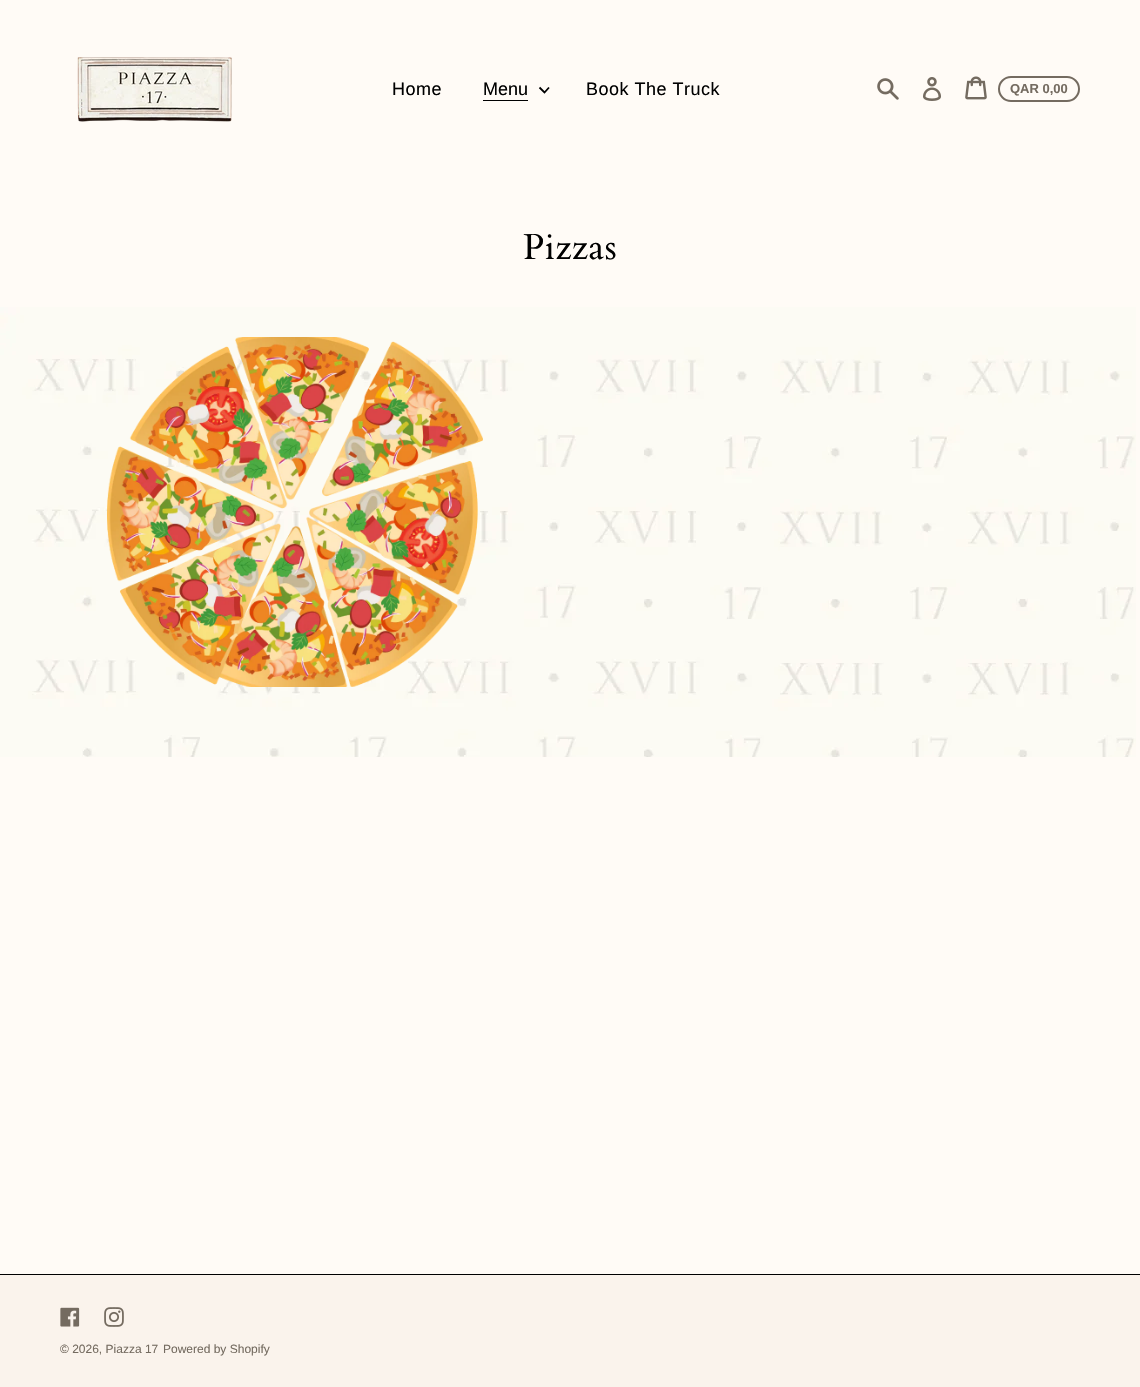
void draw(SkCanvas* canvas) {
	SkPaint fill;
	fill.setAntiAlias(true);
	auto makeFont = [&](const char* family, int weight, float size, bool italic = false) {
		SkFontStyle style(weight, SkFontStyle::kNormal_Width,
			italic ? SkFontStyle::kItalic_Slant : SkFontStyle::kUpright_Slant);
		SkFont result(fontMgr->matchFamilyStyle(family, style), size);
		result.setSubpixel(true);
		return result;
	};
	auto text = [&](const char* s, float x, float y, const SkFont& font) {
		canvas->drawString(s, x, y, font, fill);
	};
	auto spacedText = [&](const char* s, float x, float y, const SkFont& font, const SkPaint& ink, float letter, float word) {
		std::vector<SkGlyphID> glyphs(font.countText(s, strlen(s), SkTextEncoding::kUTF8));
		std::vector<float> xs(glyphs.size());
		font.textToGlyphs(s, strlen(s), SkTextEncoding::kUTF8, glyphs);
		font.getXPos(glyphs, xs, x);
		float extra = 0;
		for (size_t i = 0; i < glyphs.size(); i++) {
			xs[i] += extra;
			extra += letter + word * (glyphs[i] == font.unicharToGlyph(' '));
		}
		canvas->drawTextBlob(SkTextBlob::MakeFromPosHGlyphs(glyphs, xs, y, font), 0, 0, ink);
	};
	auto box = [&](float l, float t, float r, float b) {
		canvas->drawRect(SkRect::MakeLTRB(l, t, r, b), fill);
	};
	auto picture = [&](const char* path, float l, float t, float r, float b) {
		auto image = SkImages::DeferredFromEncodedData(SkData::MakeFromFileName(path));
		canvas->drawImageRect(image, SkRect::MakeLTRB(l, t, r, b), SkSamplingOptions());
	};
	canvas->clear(0xFFFFFBF6);
	picture("image0.png", 77, 57, 232, 122);
	fill.setColor(0xFF000000);
	box(483, 100, 528, 101);
	fill.setStyle(SkPaint::kStroke_Style);
	fill.setStrokeWidth(1.8f);
	canvas->drawPath(SkPathBuilder().moveTo(539.5f, 87.5f).lineTo(544.5f, 92.5f).lineTo(549, 87.5f).detach(), fill);
	picture("image1.png", 877, 78, 899, 100);
	picture("image2.png", 923, 77, 941, 101);
	picture("image3.png", 965, 76, 987, 100);
	fill.setStrokeWidth(2);
	fill.setColor(0xFF746B60);
	canvas->drawRoundRect(SkRect::MakeLTRB(999, 77, 1079, 101), 12, 12, fill);
	picture("image4.png", 0, 307, 1136, 757);
	picture("image5.png", 107, 337, 483, 687);
	fill.setStyle(SkPaint::kFill_Style);
	fill.setColor(0xFFFAF3EC);
	box(0, 1275, 1140, 1387);
	fill.setColor(0xFF000000);
	box(0, 1274, 1140, 1275);
	picture("image6.png", 60, 1307, 80, 1327);
	picture("image7.png", 104, 1307, 124, 1327);
	auto font1 = makeFont("Liberation Sans", 400, 18);
	spacedText("Home", 392, 95, font1, fill, 0.5f, 0);
	text("Menu", 483, 95, font1);
	spacedText("Book The Truck", 586, 95, font1, fill, 0.5f, 0);
	auto font2 = makeFont("Liberation Sans", 700, 13);
	fill.setColor(0xFF746B60);
	text("QAR 0,00", 1010, 93, font2);
	auto font3 = makeFont("Cardo", 400, 36);
	fill.setColor(0xFF000000);
	spacedText("Pizzas", 523, 259, font3, fill, 0.5f, 0);
	auto font4 = makeFont("Liberation Sans", 400, 12);
	fill.setColor(0xFF746B60);
	text("© 2026, Piazza 17", 60, 1353, font4);
	text("Powered by Shopify", 163, 1353, font4);
}
